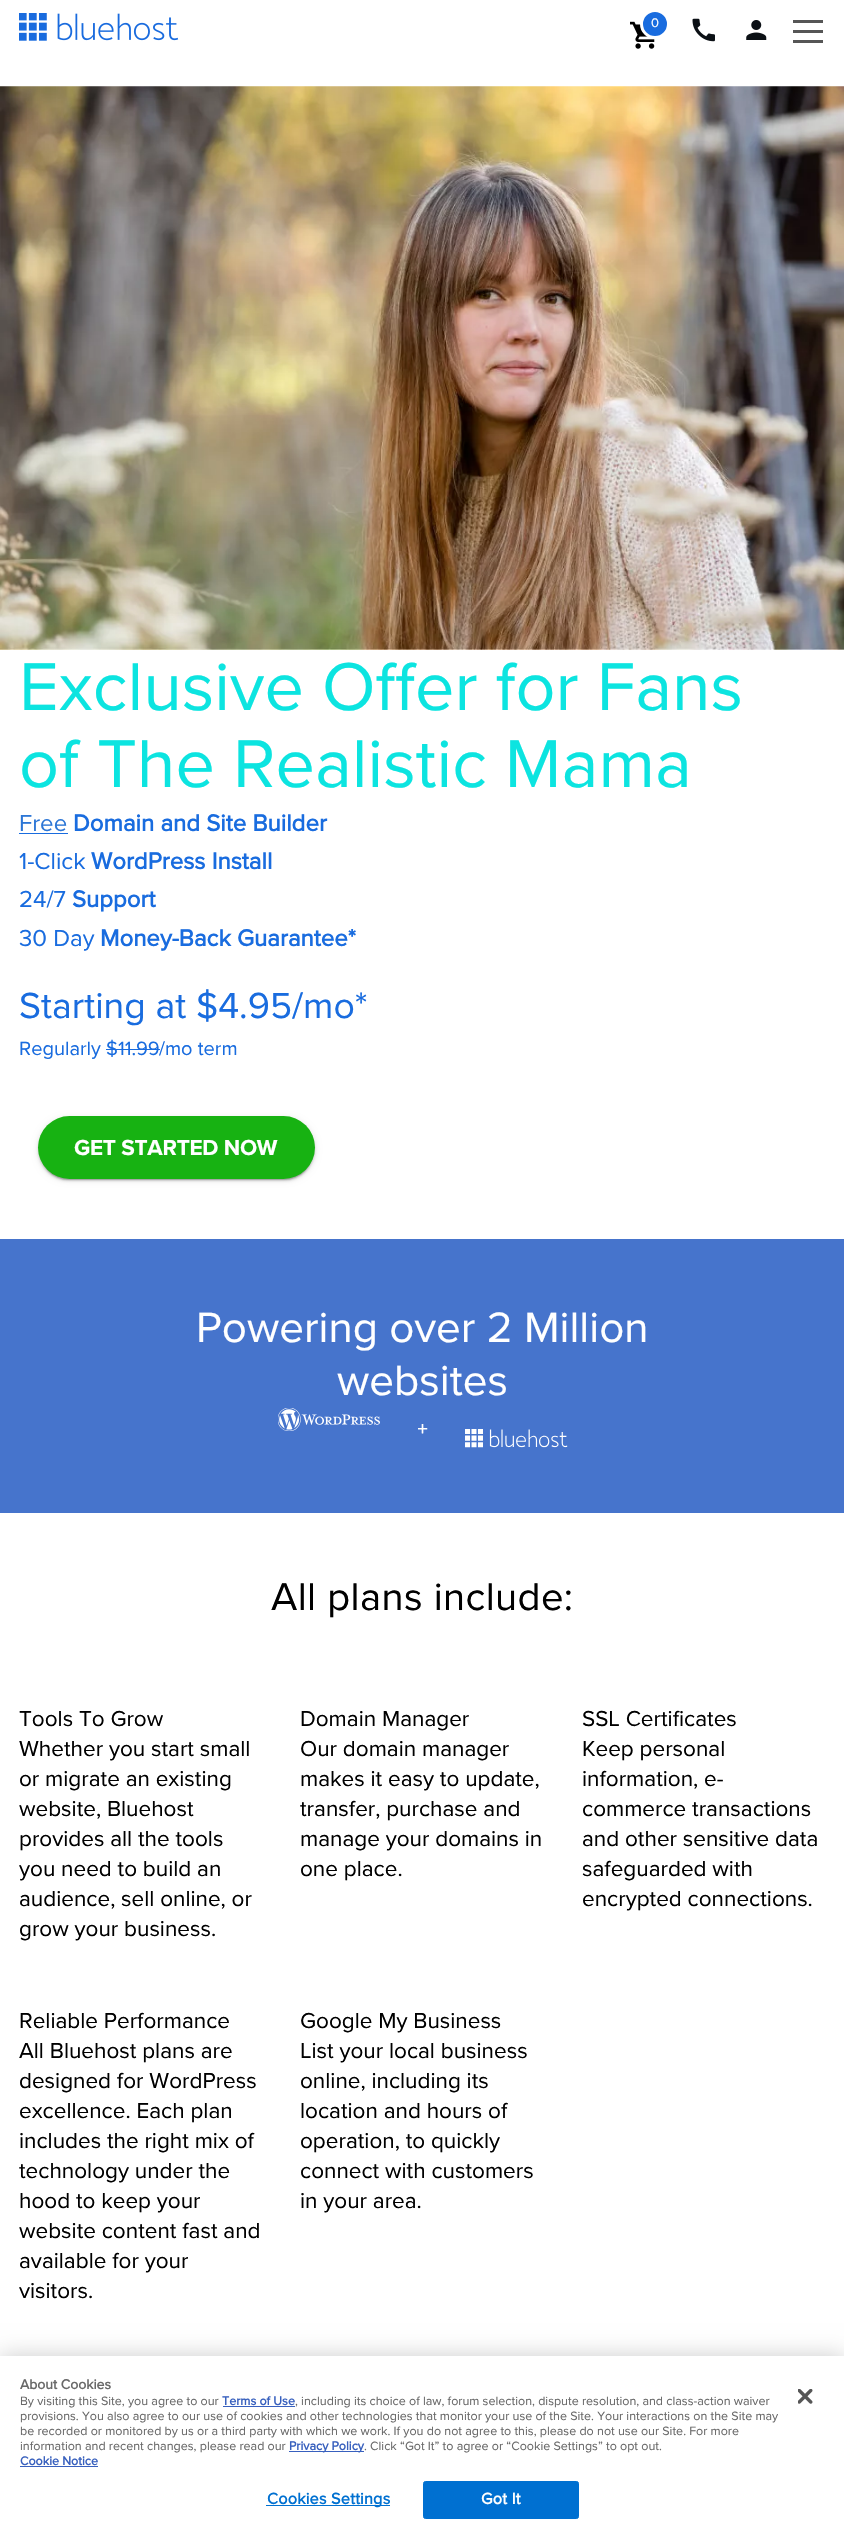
void draw(SkCanvas* canvas) {
	SkPaint fill;
	fill.setAntiAlias(true);
	auto makeFont = [&](const char* family, int weight, float size, bool italic = false) {
		SkFontStyle style(weight, SkFontStyle::kNormal_Width,
			italic ? SkFontStyle::kItalic_Slant : SkFontStyle::kUpright_Slant);
		SkFont result(fontMgr->matchFamilyStyle(family, style), size);
		result.setSubpixel(true);
		return result;
	};
	auto text = [&](const char* s, float x, float y, const SkFont& font) {
		canvas->drawString(s, x, y, font, fill);
	};
	auto spacedText = [&](const char* s, float x, float y, const SkFont& font, const SkPaint& ink, float letter, float word) {
		std::vector<SkGlyphID> glyphs(font.countText(s, strlen(s), SkTextEncoding::kUTF8));
		std::vector<float> xs(glyphs.size());
		font.textToGlyphs(s, strlen(s), SkTextEncoding::kUTF8, glyphs);
		font.getXPos(glyphs, xs, x);
		float extra = 0;
		for (size_t i = 0; i < glyphs.size(); i++) {
			xs[i] += extra;
			extra += letter + word * (glyphs[i] == font.unicharToGlyph(' '));
		}
		canvas->drawTextBlob(SkTextBlob::MakeFromPosHGlyphs(glyphs, xs, y, font), 0, 0, ink);
	};
	auto box = [&](float l, float t, float r, float b) {
		canvas->drawRect(SkRect::MakeLTRB(l, t, r, b), fill);
	};
	auto roundBox = [&](float l, float t, float r, float b, float radius) {
		canvas->drawRoundRect(SkRect::MakeLTRB(l, t, r, b), radius, radius, fill);
	};
	auto picture = [&](const char* path, float l, float t, float r, float b) {
		auto image = SkImages::DeferredFromEncodedData(SkData::MakeFromFileName(path));
		canvas->drawImageRect(image, SkRect::MakeLTRB(l, t, r, b), SkSamplingOptions());
	};
	canvas->clear(0xFFFFFFFF);
	picture("image0.png", 19, 13, 179, 41);
	picture("image1.png", 630, 21, 655, 49);
	fill.setColor(0xFF196CDF);
	canvas->drawCircle(655, 24, 13.5f, fill);
	fill.setStyle(SkPaint::kStroke_Style);
	fill.setStrokeWidth(3);
	fill.setColor(0xFFFFFFFF);
	canvas->drawCircle(655, 24, 13.5f, fill);
	picture("image2.png", 692, 18, 715, 42);
	picture("image3.png", 746, 20, 767, 40);
	fill.setStyle(SkPaint::kFill_Style);
	fill.setColor(0xFF565656);
	box(793, 30, 823, 33);
	box(793, 20, 823, 23);
	box(793, 40, 823, 43);
	picture("image4.png", 0, 86, 844, 650);
	fill.setColor(0xFF196CDF);
	box(19, 833, 68, 834);
	box(106, 1049, 160, 1050);
	fill.setColor(0x1F000000);
	fill.setMaskFilter(SkMaskFilter::MakeBlur(kNormal_SkBlurStyle, 3));
	canvas->drawRoundRect(SkRect::MakeLTRB(38, 1118, 315, 1180), 31, 31, fill);
	fill.setMaskFilter(nullptr);
	fill.setColor(0x24000000);
	fill.setMaskFilter(SkMaskFilter::MakeBlur(kNormal_SkBlurStyle, 1));
	canvas->drawRoundRect(SkRect::MakeLTRB(38, 1119, 315, 1181), 31, 31, fill);
	fill.setMaskFilter(nullptr);
	fill.setColor(0x33000000);
	fill.setMaskFilter(SkMaskFilter::MakeBlur(kNormal_SkBlurStyle, 0.5f));
	canvas->drawRoundRect(SkRect::MakeLTRB(40, 1123, 313, 1180), 28.5f, 28.5f, fill);
	fill.setMaskFilter(nullptr);
	fill.setColor(0xFF17B212);
	roundBox(38, 1116, 315, 1179, 31.5f);
	fill.setColor(0xFF4674CC);
	box(0, 1239, 844, 1513);
	picture("image5.png", 278, 1408, 380, 1431);
	picture("image6.png", 418, 1424, 428, 1434);
	picture("image7.png", 465, 1429, 568, 1448);
	fill.setColor(0x33000000);
	fill.setMaskFilter(SkMaskFilter::MakeBlur(kNormal_SkBlurStyle, 11));
	canvas->drawRect(SkRect::MakeLTRB(0, 2356, 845, 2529), fill);
	fill.setMaskFilter(nullptr);
	fill.setColor(0xFFFFFFFF);
	box(0, 2356, 844, 2528);
	fill.setColor(0xFF3860BE);
	box(223, 2406, 295, 2407);
	box(289, 2451, 364, 2452);
	box(20, 2466, 98, 2467);
	fill.setColor(0xFF0070D1);
	box(266, 2505, 390, 2506);
	canvas->drawRoundRect(SkRect::MakeLTRB(423.5f, 2481.5f, 578.5f, 2518.5f), 2, 2, fill);
	fill.setStyle(SkPaint::kStroke_Style);
	fill.setStrokeWidth(1);
	canvas->drawRoundRect(SkRect::MakeLTRB(423.5f, 2481.5f, 578.5f, 2518.5f), 2, 2, fill);
	picture("image8.png", 798, 2389, 813, 2404);
	auto font1 = makeFont("Proxima Nova", 400, 13);
	fill.setStyle(SkPaint::kFill_Style);
	fill.setColor(0xFFFFFFFF);
	text("0", 651, 27, font1);
	auto font2 = makeFont("Proxima Nova", 400, 70);
	fill.setColor(0xFF0CE4E0);
	text("Exclusive Offer for Fans", 19, 710, font2);
	text("of The Realistic Mama", 19, 787, font2);
	auto font3 = makeFont("Proxima Nova", 400, 24);
	fill.setColor(0xFF2C76D6);
	text("Free", 19, 831, font3);
	auto font4 = makeFont("Proxima Nova", 700, 24);
	fill.setColor(0xFF196CDF);
	text("Domain and Site Builder", 73, 831, font4);
	text("1-Click", 19, 869, font3);
	text("WordPress Install", 91, 869, font4);
	text("24/7", 19, 907, font3);
	text("Support", 72, 907, font4);
	text("30 Day", 19, 946, font3);
	text("Money-Back Guarantee*", 100, 946, font4);
	auto font5 = makeFont("Proxima Nova", 400, 37.5f);
	text("Starting at $4.95/mo*", 19, 1018, font5);
	auto font6 = makeFont("Proxima Nova", 400, 20);
	text("Regularly $11.99", 19, 1055, font6);
	text("/mo term", 159, 1055, font6);
	auto font7 = makeFont("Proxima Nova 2", 700, 22.5f);
	fill.setColor(0xFFFFFFFF);
	spacedText("GET STARTED NOW", 74, 1155, font7, fill, -0.25f, 0);
	auto font8 = makeFont("Proxima Nova", 400, 44);
	text("Powering over 2 Million", 196, 1342, font8);
	text("websites", 337, 1395, font8);
	auto font9 = makeFont("Proxima Nova", 400, 40);
	fill.setColor(0xFF000000);
	spacedText("All plans include:", 271, 1610, font9, fill, 0.4f, 0);
	auto font10 = makeFont("Proxima Nova", 400, 22.5f);
	text("Tools To Grow", 19, 1726, font10);
	text("Whether you start small", 19, 1756, font10);
	text("or migrate an existing", 19, 1786, font10);
	text("website, Bluehost", 19, 1816, font10);
	text("provides all the tools", 19, 1846, font10);
	text("you need to build an", 19, 1876, font10);
	text("audience, sell online, or", 19, 1906, font10);
	text("grow your business.", 19, 1936, font10);
	text("Domain Manager", 300, 1726, font10);
	text("Our domain manager", 300, 1756, font10);
	text("makes it easy to update,", 300, 1786, font10);
	text("transfer, purchase and", 300, 1816, font10);
	text("manage your domains in", 300, 1846, font10);
	text("one place.", 300, 1876, font10);
	text("SSL Certificates", 582, 1726, font10);
	text("Keep personal", 582, 1756, font10);
	text("information, e-", 582, 1786, font10);
	text("commerce transactions", 582, 1816, font10);
	text("and other sensitive data", 582, 1846, font10);
	text("safeguarded with", 582, 1876, font10);
	text("encrypted connections.", 582, 1906, font10);
	text("Reliable Performance", 19, 2028, font10);
	text("All Bluehost plans are", 19, 2058, font10);
	text("designed for WordPress", 19, 2088, font10);
	text("excellence. Each plan", 19, 2118, font10);
	text("includes the right mix of", 19, 2148, font10);
	text("technology under the", 19, 2178, font10);
	text("hood to keep your", 19, 2208, font10);
	text("website content fast and", 19, 2238, font10);
	text("available for your", 19, 2268, font10);
	text("visitors.", 19, 2298, font10);
	text("Google My Business", 300, 2028, font10);
	text("List your local business", 300, 2058, font10);
	text("online, including its", 300, 2088, font10);
	text("location and hours of", 300, 2118, font10);
	text("operation, to quickly", 300, 2148, font10);
	text("connect with customers", 300, 2178, font10);
	text("in your area.", 300, 2208, font10);
	auto font11 = makeFont("Proxima Nova", 700, 14);
	fill.setColor(0xFF696969);
	text("About Cookies", 20, 2389, font11);
	auto font12 = makeFont("Proxima Nova", 400, 12.5f);
	text("By visiting this Site, you agree to our", 20, 2405, font12);
	auto font13 = makeFont("Proxima Nova", 700, 12.5f);
	fill.setColor(0xFF3860BE);
	text("Terms of Use", 222, 2405, font13);
	fill.setColor(0xFF696969);
	text(", including its choice of law, forum selection, dispute resolution, and class-action waiver", 295, 2405, font12);
	text("provisions. You also agree to our use of cookies and other technologies that monitor your use of the Site. Your interactions on the Site may", 20, 2420, font12);
	text("be recorded or monitored by us or a third party with which we work. If you do not agree to this, please do not use our Site. For more", 20, 2435, font12);
	text("information and recent changes, please read our", 20, 2450, font12);
	fill.setColor(0xFF3860BE);
	text("Privacy Policy", 289, 2450, font13);
	fill.setColor(0xFF696969);
	text(". Click “Got It” to agree or “Cookie Settings” to opt out.", 364, 2450, font12);
	fill.setColor(0xFF3860BE);
	text("Cookie Notice", 20, 2465, font13);
	auto font14 = makeFont("Proxima Nova", 700, 16.25f);
	fill.setColor(0xFF0070D1);
	spacedText("Cookies Settings", 267, 2504, font14, fill, 0.2f, 0);
	fill.setColor(0xFFFFFFFF);
	spacedText("Got It", 481, 2504, font14, fill, 0.2f, 0);
}
